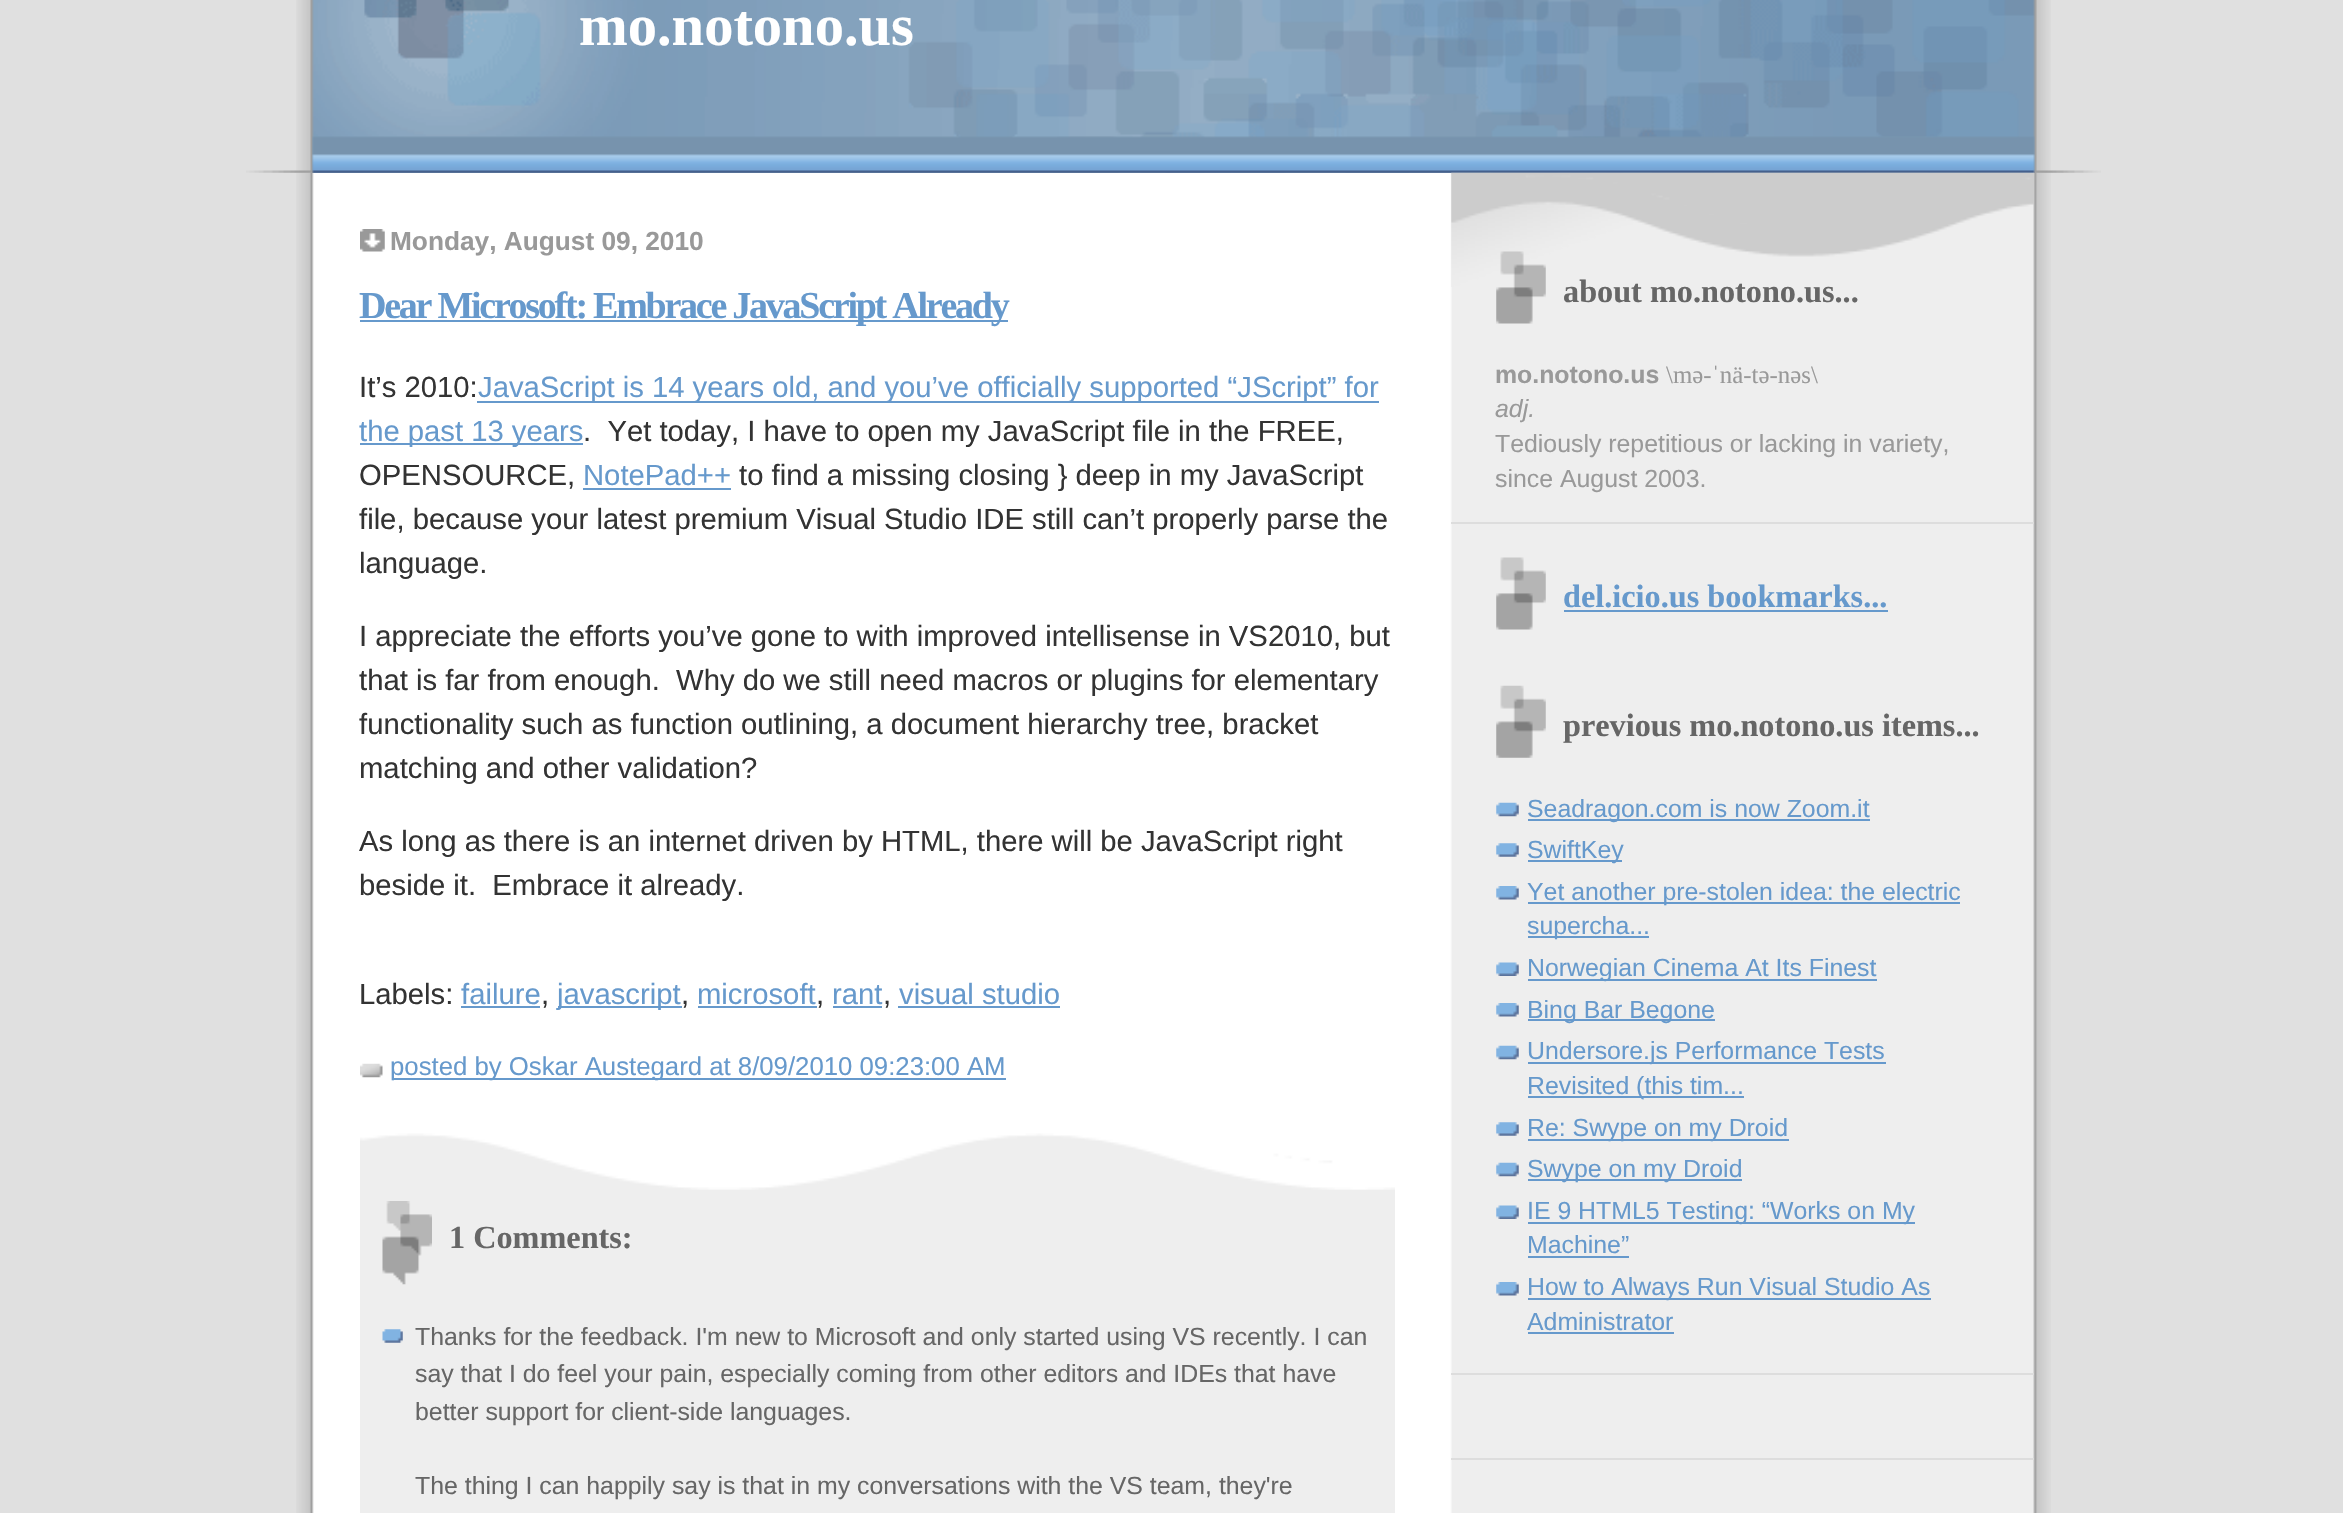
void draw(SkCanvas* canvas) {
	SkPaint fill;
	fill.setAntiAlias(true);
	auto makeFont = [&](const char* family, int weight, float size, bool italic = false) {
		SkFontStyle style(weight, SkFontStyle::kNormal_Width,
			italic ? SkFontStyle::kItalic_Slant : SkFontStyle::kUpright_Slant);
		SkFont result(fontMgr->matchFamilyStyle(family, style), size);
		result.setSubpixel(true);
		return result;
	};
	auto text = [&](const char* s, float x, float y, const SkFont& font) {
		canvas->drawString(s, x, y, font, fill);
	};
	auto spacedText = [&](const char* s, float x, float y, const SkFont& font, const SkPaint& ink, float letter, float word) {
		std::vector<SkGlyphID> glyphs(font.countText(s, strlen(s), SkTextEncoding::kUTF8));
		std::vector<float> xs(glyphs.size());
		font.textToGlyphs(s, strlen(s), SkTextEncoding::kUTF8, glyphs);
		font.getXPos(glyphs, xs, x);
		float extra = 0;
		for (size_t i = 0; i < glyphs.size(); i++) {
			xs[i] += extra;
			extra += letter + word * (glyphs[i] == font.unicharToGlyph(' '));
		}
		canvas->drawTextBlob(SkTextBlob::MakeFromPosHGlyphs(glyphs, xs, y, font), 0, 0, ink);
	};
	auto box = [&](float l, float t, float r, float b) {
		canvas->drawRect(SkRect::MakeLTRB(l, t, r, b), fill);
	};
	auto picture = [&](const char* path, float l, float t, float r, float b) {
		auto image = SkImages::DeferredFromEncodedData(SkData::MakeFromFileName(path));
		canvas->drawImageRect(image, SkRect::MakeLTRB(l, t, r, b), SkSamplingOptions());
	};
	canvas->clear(0xFFE0E0E0);
	picture("image0.png", 296, 173, 2051, 1513);
	picture("image1.png", 296, 0, 2051, 173);
	picture("image2.png", 246, 136, 2101, 173);
	picture("image3.png", 360, 229, 385, 252);
	fill.setColor(0xFF6699CC);
	box(360, 320, 1008, 322);
	box(477, 401, 1379, 403);
	box(360, 443, 583, 445);
	box(583, 488, 731, 490);
	box(461, 1006, 540, 1008);
	box(558, 1006, 682, 1008);
	box(698, 1006, 817, 1008);
	box(833, 1006, 882, 1008);
	box(898, 1006, 1060, 1008);
	picture("image4.png", 360, 1063, 383, 1078);
	box(392, 1078, 1006, 1080);
	fill.setColor(0xFFEEEEEE);
	box(360, 1135, 1395, 1513);
	picture("image5.png", 360, 1133, 1395, 1190);
	picture("image6.png", 382, 1201, 432, 1285);
	picture("image7.png", 382, 1329, 403, 1343);
	picture("image8.png", 1451, 172, 2034, 287);
	picture("image9.png", 1496, 251, 1546, 324);
	fill.setColor(0xFFDDDDDD);
	box(1451, 522, 2034, 524);
	picture("image10.png", 1496, 557, 1546, 630);
	fill.setColor(0xFF6699CC);
	box(1564, 610, 1888, 612);
	picture("image11.png", 1496, 685, 1546, 758);
	fill.setColor(0xFFDDDDDD);
	box(1451, 1373, 2034, 1375);
	picture("image12.png", 1496, 802, 1519, 817);
	fill.setColor(0xFF6699CC);
	box(1528, 819, 1870, 821);
	picture("image13.png", 1496, 843, 1519, 857);
	box(1528, 860, 1622, 862);
	picture("image14.png", 1496, 886, 1519, 900);
	box(1528, 902, 1960, 904);
	box(1528, 936, 1649, 938);
	picture("image15.png", 1496, 962, 1519, 976);
	box(1528, 979, 1877, 981);
	picture("image14.png", 1496, 1003, 1519, 1017);
	box(1528, 1019, 1715, 1021);
	picture("image12.png", 1496, 1045, 1519, 1060);
	box(1528, 1062, 1886, 1064);
	box(1528, 1096, 1744, 1098);
	picture("image13.png", 1496, 1122, 1519, 1136);
	box(1528, 1139, 1789, 1141);
	picture("image12.png", 1496, 1162, 1519, 1177);
	box(1528, 1179, 1742, 1181);
	picture("image15.png", 1496, 1205, 1519, 1219);
	box(1528, 1222, 1915, 1224);
	box(1528, 1256, 1629, 1258);
	picture("image14.png", 1496, 1282, 1519, 1296);
	box(1528, 1298, 1931, 1300);
	box(1528, 1332, 1674, 1334);
	fill.setColor(0xFFDDDDDD);
	box(1451, 1458, 2034, 1460);
	auto font1 = makeFont("Liberation Serif", 700, 58.5f);
	fill.setColor(0xFFFFFFFF);
	text("mo.notono.us", 579, 45, font1);
	auto font2 = makeFont("Liberation Sans", 700, 26.25f);
	fill.setColor(0xFF999999);
	text("Monday, August 09, 2010", 390, 250, font2);
	auto font3 = makeFont("Liberation Serif", 700, 38);
	fill.setColor(0xFF6699CC);
	spacedText("Dear Microsoft: Embrace JavaScript Already", 359, 318, font3, fill, -2.25f, 0);
	auto font4 = makeFont("Liberation Sans", 400, 29.25f);
	fill.setColor(0xFF333333);
	text("It’s 2010:", 359, 397, font4);
	fill.setColor(0xFF6699CC);
	text("JavaScript is 14 years old, and you’ve officially supported “JScript” for", 478, 397, font4);
	text("the past 13 years", 359, 441, font4);
	fill.setColor(0xFF333333);
	text(".  Yet today, I have to open my JavaScript file in the FREE,", 583, 441, font4);
	text("OPENSOURCE,", 359, 485, font4);
	fill.setColor(0xFF6699CC);
	text("NotePad++", 583, 485, font4);
	fill.setColor(0xFF333333);
	text("to find a missing closing } deep in my JavaScript", 739, 485, font4);
	text("file, because your latest premium Visual Studio IDE still can’t properly parse the", 359, 529, font4);
	text("language.", 359, 573, font4);
	text("I appreciate the efforts you’ve gone to with improved intellisense in VS2010, but", 359, 646, font4);
	text("that is far from enough.  Why do we still need macros or plugins for elementary", 359, 690, font4);
	text("functionality such as function outlining, a document hierarchy tree, bracket", 359, 734, font4);
	text("matching and other validation?", 359, 778, font4);
	text("As long as there is an internet driven by HTML, there will be JavaScript right", 359, 851, font4);
	text("beside it.  Embrace it already.", 359, 895, font4);
	text("Labels:", 359, 1004, font4);
	fill.setColor(0xFF6699CC);
	text("failure", 461, 1004, font4);
	fill.setColor(0xFF333333);
	text(",", 541, 1004, font4);
	fill.setColor(0xFF6699CC);
	text("javascript", 557, 1004, font4);
	fill.setColor(0xFF333333);
	text(",", 681, 1004, font4);
	fill.setColor(0xFF6699CC);
	text("microsoft", 697, 1004, font4);
	fill.setColor(0xFF333333);
	text(",", 816, 1004, font4);
	fill.setColor(0xFF6699CC);
	text("rant", 832, 1004, font4);
	fill.setColor(0xFF333333);
	text(",", 883, 1004, font4);
	fill.setColor(0xFF6699CC);
	text("visual studio", 899, 1004, font4);
	auto font5 = makeFont("Liberation Sans", 400, 25.75f);
	text("posted by Oskar Austegard at 8/09/2010 09:23:00 AM", 390, 1075, font5);
	auto font6 = makeFont("Liberation Serif", 700, 32.25f);
	fill.setColor(0xFF666666);
	text("1 Comments:", 449, 1248, font6);
	auto font7 = makeFont("Liberation Sans", 400, 24.85f);
	text("Thanks for the feedback. I'm new to Microsoft and only started using VS recently. I can", 415, 1345, font7);
	text("say that I do feel your pain, especially coming from other editors and IDEs that have", 415, 1382, font7);
	text("better support for client-side languages.", 415, 1420, font7);
	text("The thing I can happily say is that in my conversations with the VS team, they're", 415, 1494, font7);
	text("about mo.notono.us...", 1563, 302, font6);
	auto font8 = makeFont("Liberation Sans", 700, 24.85f);
	fill.setColor(0xFF999999);
	text("mo.notono.us", 1495, 383, font8);
	auto font9 = makeFont("Liberation Serif", 400, 24.85f);
	text("\\mə-ˈnä-tə-nəs\\", 1666, 383, font9);
	auto font10 = makeFont("Liberation Sans", 400, 24.85f, true);
	text("adj.", 1495, 417, font10);
	text("Tediously repetitious or lacking in variety,", 1495, 452, font7);
	text("since August 2003.", 1495, 487, font7);
	fill.setColor(0xFF6699CC);
	text("del.icio.us bookmarks...", 1563, 607, font6);
	fill.setColor(0xFF666666);
	text("previous mo.notono.us items...", 1563, 736, font6);
	fill.setColor(0xFF6699CC);
	text("Seadragon.com is now Zoom.it", 1527, 817, font7);
	text("SwiftKey", 1527, 858, font7);
	text("Yet another pre-stolen idea: the electric", 1527, 900, font7);
	text("supercha...", 1527, 934, font7);
	text("Norwegian Cinema At Its Finest", 1527, 976, font7);
	text("Bing Bar Begone", 1527, 1018, font7);
	text("Undersore.js Performance Tests", 1527, 1059, font7);
	text("Revisited (this tim...", 1527, 1094, font7);
	text("Re: Swype on my Droid", 1527, 1136, font7);
	text("Swype on my Droid", 1527, 1177, font7);
	text("IE 9 HTML5 Testing: “Works on My", 1527, 1219, font7);
	text("Machine”", 1527, 1253, font7);
	text("How to Always Run Visual Studio As", 1527, 1295, font7);
	text("Administrator", 1527, 1330, font7);
}
